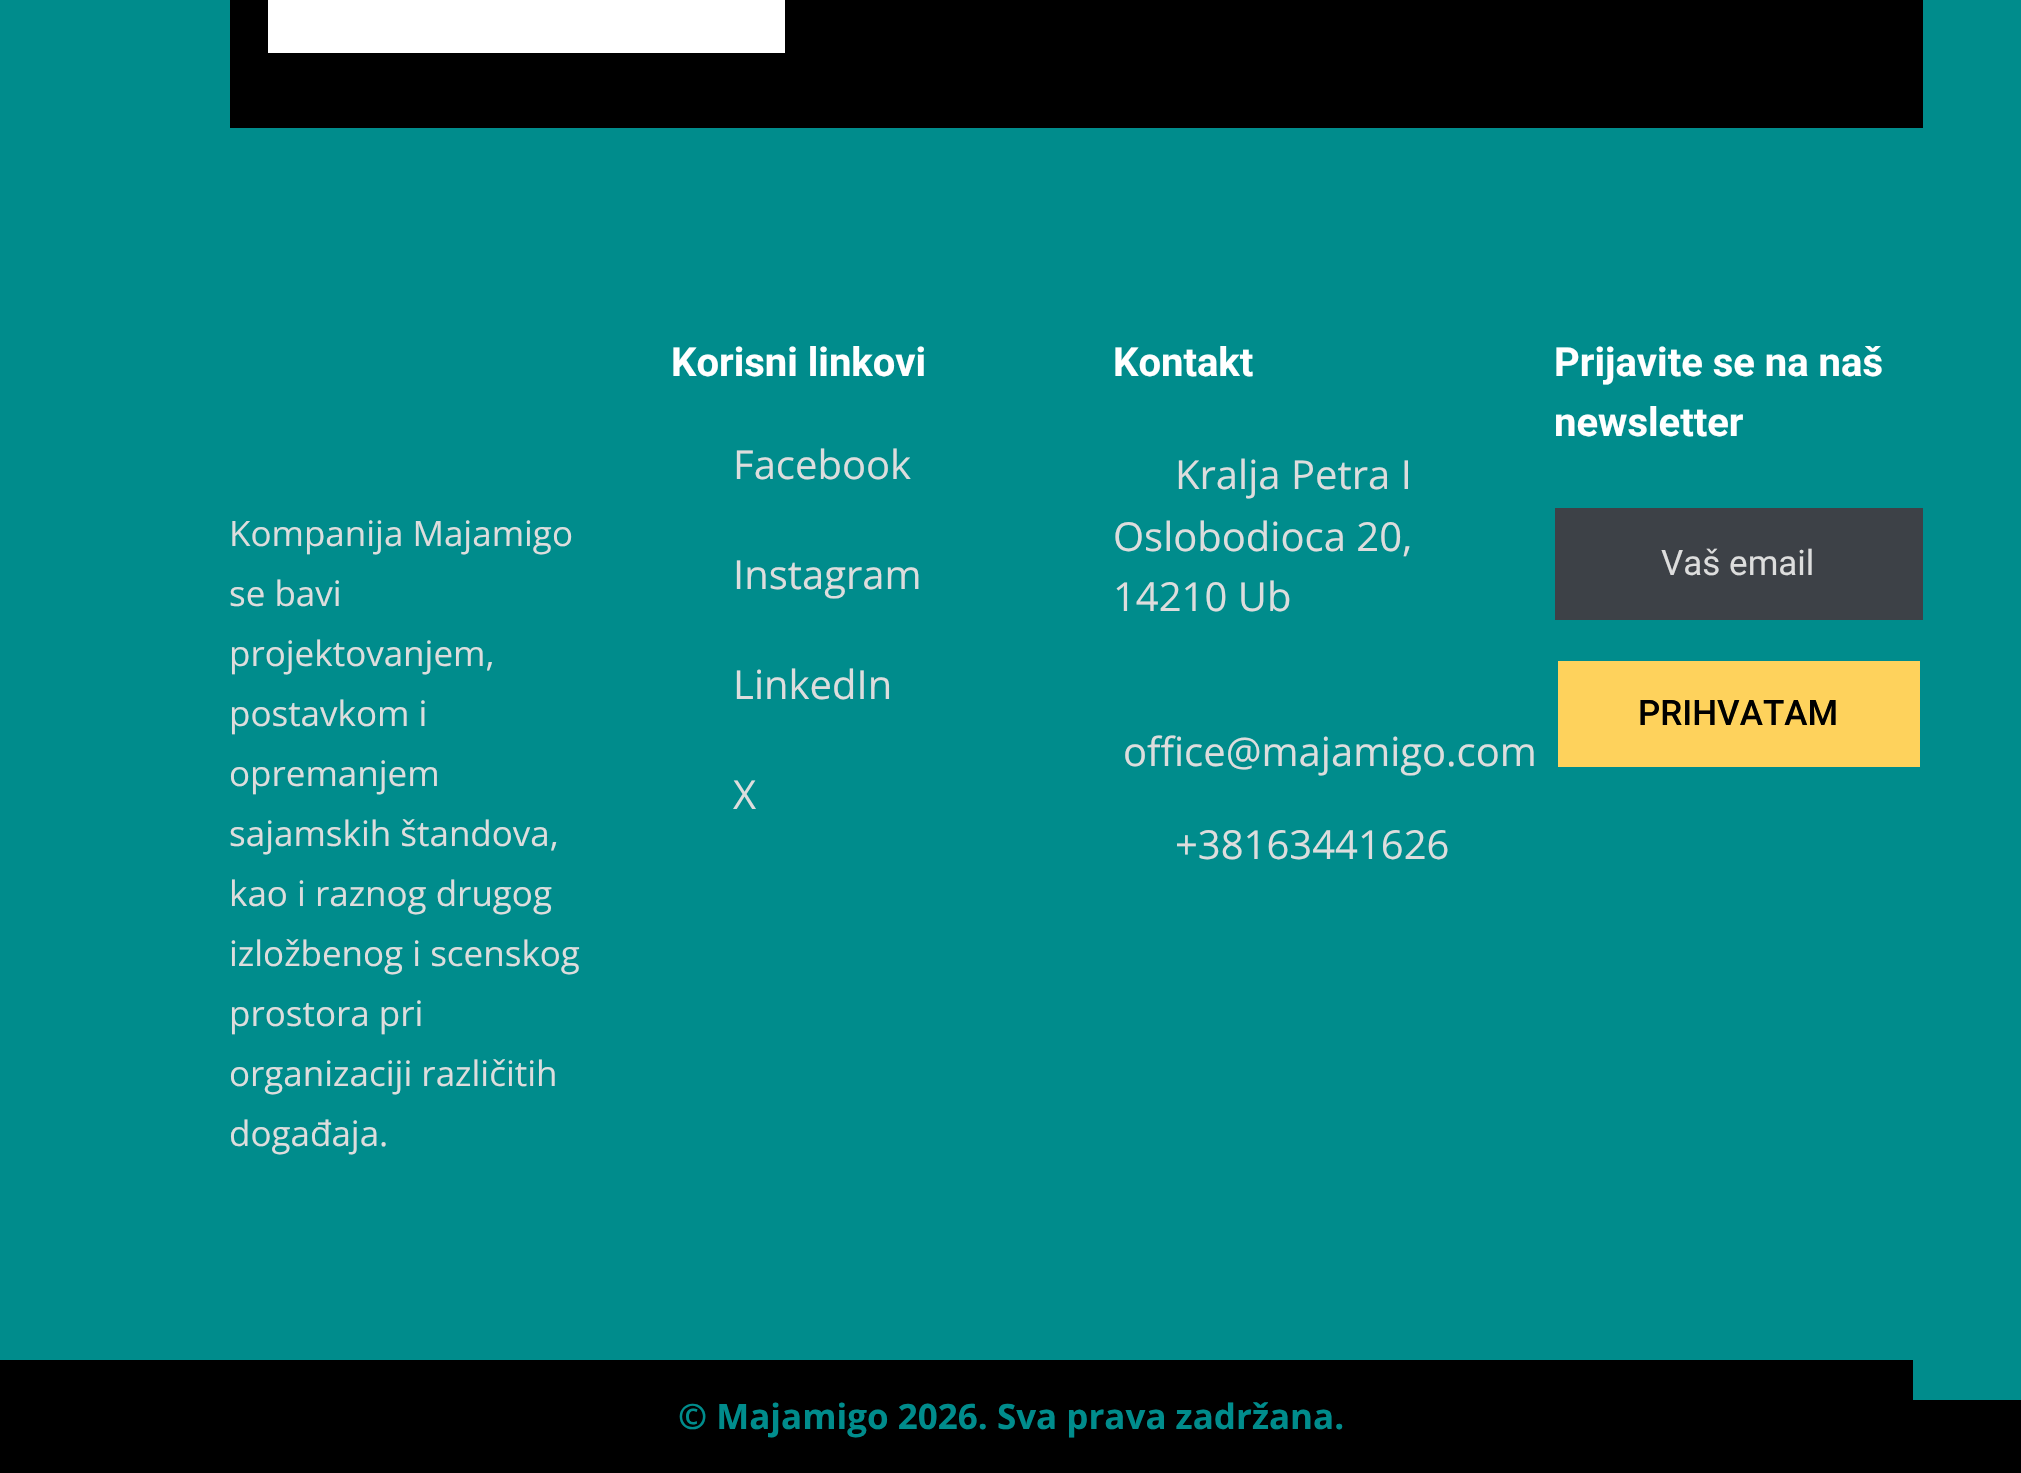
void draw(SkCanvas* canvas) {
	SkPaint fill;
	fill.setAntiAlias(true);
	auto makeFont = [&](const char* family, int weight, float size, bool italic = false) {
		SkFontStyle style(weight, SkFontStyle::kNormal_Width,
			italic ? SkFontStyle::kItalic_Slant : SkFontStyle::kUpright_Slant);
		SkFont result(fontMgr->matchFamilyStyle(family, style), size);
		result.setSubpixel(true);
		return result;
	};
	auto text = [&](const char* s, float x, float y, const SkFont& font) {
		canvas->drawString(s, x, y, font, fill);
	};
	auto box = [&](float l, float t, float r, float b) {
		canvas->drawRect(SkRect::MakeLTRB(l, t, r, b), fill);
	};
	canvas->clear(0xFF008C8C);
	fill.setColor(0xFF000000);
	box(230, 0, 1923, 128);
	fill.setColor(0xFFFFFFFF);
	box(268, 0, 785, 53);
	fill.setColor(0xFF3D4147);
	box(1555, 508, 1923, 620);
	fill.setColor(0xFFFED25C);
	box(1558, 661, 1920, 767);
	fill.setColor(0xFF000000);
	box(0, 1360, 2021, 1473);
	fill.setColor(0xFF008C8C);
	box(1913, 1360, 2021, 1400);
	auto font1 = makeFont("Open Sans", 400, 35);
	fill.setColor(0xFFDDDDDD);
	text("Kompanija Majamigo", 229, 546, font1);
	text("se bavi", 229, 606, font1);
	text("projektovanjem,", 229, 666, font1);
	text("postavkom i", 229, 726, font1);
	text("opremanjem", 229, 786, font1);
	text("sajamskih štandova,", 229, 846, font1);
	text("kao i raznog drugog", 229, 906, font1);
	text("izložbenog i scenskog", 229, 966, font1);
	text("prostora pri", 229, 1026, font1);
	text("organizaciji različitih", 229, 1086, font1);
	text("događaja.", 229, 1146, font1);
	auto font2 = makeFont("Roboto", 700, 40);
	fill.setColor(0xFFFFFFFF);
	text("Korisni linkovi", 671, 376, font2);
	auto font3 = makeFont("Open Sans", 400, 40);
	fill.setColor(0xFFDDDDDD);
	text("Facebook", 733, 479, font3);
	text("Instagram", 733, 589, font3);
	text("LinkedIn", 733, 699, font3);
	text("X", 733, 809, font3);
	fill.setColor(0xFFFFFFFF);
	text("Kontakt", 1113, 376, font2);
	fill.setColor(0xFFDDDDDD);
	text("Kralja Petra I", 1175, 489, font3);
	text("Oslobodioca 20,", 1113, 551, font3);
	text("14210 Ub", 1113, 611, font3);
	text("office@majamigo.com", 1123, 766, font3);
	text("+38163441626", 1175, 859, font3);
	fill.setColor(0xFFFFFFFF);
	text("Prijavite se na naš", 1554, 376, font2);
	text("newsletter", 1554, 436, font2);
	auto font4 = makeFont("Roboto", 400, 35);
	fill.setColor(0xFFDDDDDD);
	text("Vaš email", 1661, 575, font4);
	auto font5 = makeFont("Roboto", 500, 35);
	fill.setColor(0xFF000000);
	text("PRIHVATAM", 1638, 725, font5);
	auto font6 = makeFont("Open Sans", 700, 35);
	fill.setColor(0xFF008C8C);
	text("© Majamigo 2026. Sva prava zadržana.", 678, 1429, font6);
}
